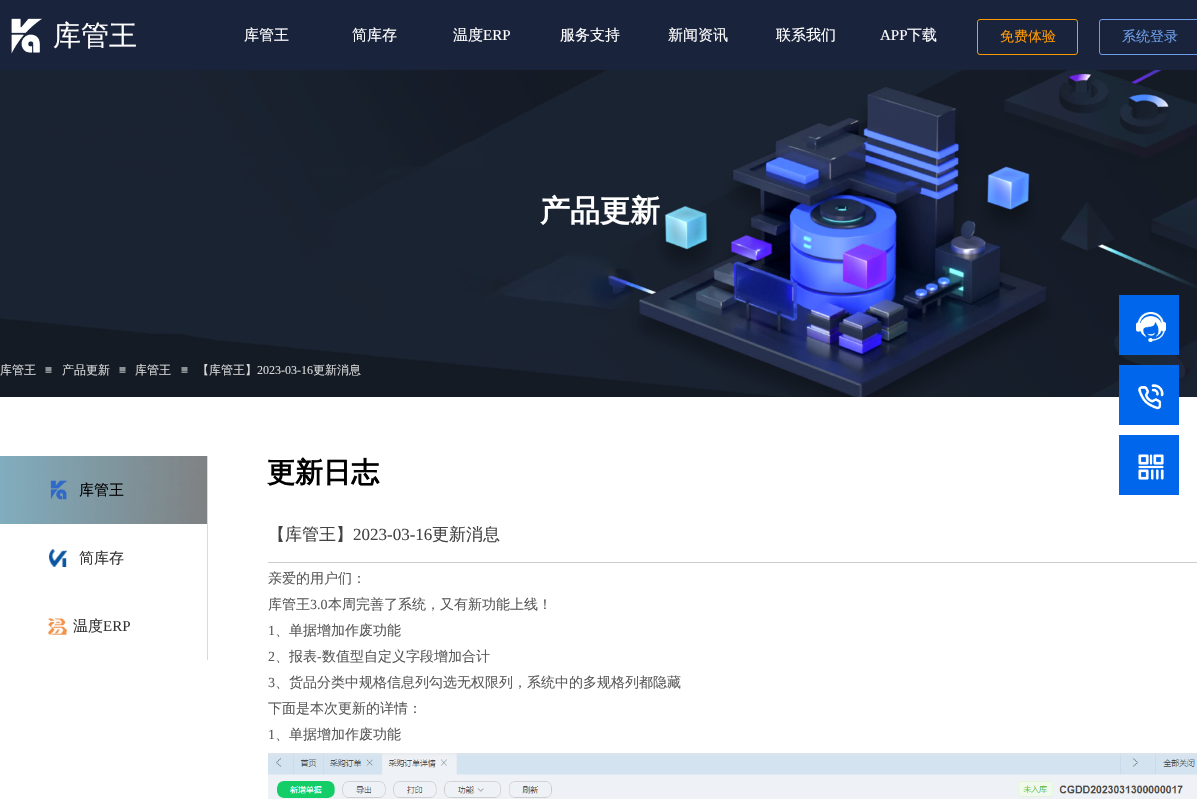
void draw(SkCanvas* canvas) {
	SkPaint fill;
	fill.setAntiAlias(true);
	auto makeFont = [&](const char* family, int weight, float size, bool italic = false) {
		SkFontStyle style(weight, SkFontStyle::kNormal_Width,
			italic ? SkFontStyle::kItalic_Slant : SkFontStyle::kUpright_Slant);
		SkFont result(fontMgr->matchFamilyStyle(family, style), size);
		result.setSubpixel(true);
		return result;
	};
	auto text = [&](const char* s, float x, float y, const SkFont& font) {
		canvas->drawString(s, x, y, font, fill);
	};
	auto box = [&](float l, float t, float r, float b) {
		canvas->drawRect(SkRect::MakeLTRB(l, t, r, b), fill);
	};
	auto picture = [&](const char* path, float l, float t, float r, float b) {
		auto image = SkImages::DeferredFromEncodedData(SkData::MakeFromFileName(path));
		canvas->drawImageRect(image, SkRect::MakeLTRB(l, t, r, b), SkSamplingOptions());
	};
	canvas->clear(0xFFFFFFFF);
	fill.setColor(0xFF19233C);
	box(0, 0, 1197, 70);
	picture("image0.png", 11, 18, 42, 54);
	fill.setStyle(SkPaint::kStroke_Style);
	fill.setStrokeWidth(1);
	fill.setColor(0xFFFF9900);
	canvas->drawRoundRect(SkRect::MakeLTRB(977.5f, 19.5f, 1077.5f, 54.5f), 2.5f, 2.5f, fill);
	fill.setColor(0xFF6D9EEB);
	canvas->drawRoundRect(SkRect::MakeLTRB(1099.5f, 19.5f, 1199.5f, 54.5f), 2.5f, 2.5f, fill);
	picture("image1.png", 0, 70, 1197, 397);
	picture("image3.png", 0, 456, 207, 524);
	picture("image2.png", 50, 480, 67, 500);
	fill.setStyle(SkPaint::kFill_Style);
	fill.setColor(0xFFD9D9D9);
	box(207, 456, 208, 660);
	picture("image4.png", 268, 753, 1197, 799);
	picture("image5.png", 49, 549, 67, 567);
	fill.setColor(0xFFCCCCCC);
	box(268, 562, 1197, 563);
	picture("image6.png", 47, 618, 68, 635);
	fill.setColor(0xFF0067ED);
	box(1119, 295, 1179, 355);
	picture("image7.png", 1136, 312, 1166, 342);
	box(1119, 365, 1179, 425);
	picture("image8.png", 1138, 384, 1164, 410);
	box(1119, 435, 1179, 495);
	picture("image9.png", 1138, 454, 1164, 480);
	auto font1 = makeFont("WenQuanYi Zen Hei", 500, 28);
	fill.setColor(0xFFFFFFFF);
	text("库管王", 53, 45, font1);
	auto font2 = makeFont("WenQuanYi Zen Hei", 500, 15);
	text("库管王", 244, 40, font2);
	text("简库存", 352, 40, font2);
	text("温度", 453, 40, font2);
	auto font3 = makeFont("Liberation Serif", 400, 15);
	text("ERP", 483, 40, font3);
	text("服务支持", 560, 40, font2);
	text("新闻资讯", 668, 40, font2);
	text("联系我们", 776, 40, font2);
	text("APP", 880, 40, font3);
	text("下载", 907, 40, font2);
	auto font4 = makeFont("WenQuanYi Zen Hei", 500, 14);
	fill.setColor(0xFFFF9900);
	text("免费体验", 1000, 41, font4);
	fill.setColor(0xFF6D9EEB);
	text("系统登录", 1122, 41, font4);
	auto font5 = makeFont("WenQuanYi Zen Hei", 700, 30);
	fill.setColor(0xFFFFFFFF);
	text("产品更新", 540, 221, font5);
	auto font6 = makeFont("WenQuanYi Zen Hei", 500, 12);
	fill.setColor(0xFFD9D9D9);
	text("库管王", 0, 374, font6);
	auto font7 = makeFont("Liberation Sans", 400, 12);
	text("≡", 45, 374, font7);
	text("产品更新", 62, 374, font6);
	text("≡", 119, 374, font7);
	text("库管王", 135, 374, font6);
	text("≡", 181, 374, font7);
	text("【库管王】", 197, 374, font6);
	auto font8 = makeFont("Liberation Serif", 400, 12);
	text("2023-03-16", 257, 374, font8);
	text("更新消息", 313, 374, font6);
	auto font9 = makeFont("WenQuanYi Zen Hei", 700, 28);
	fill.setColor(0xFF000000);
	text("更新日志", 267, 482, font9);
	text("库管王", 79, 495, font2);
	fill.setColor(0xFF333333);
	text("简库存", 79, 563, font2);
	text("温度", 73, 631, font2);
	text("ERP", 103, 631, font3);
	auto font10 = makeFont("WenQuanYi Zen Hei", 500, 17);
	fill.setColor(0xFF434343);
	text("【库管王】", 268, 540, font10);
	auto font11 = makeFont("Liberation Serif", 400, 17);
	text("2023-03-16", 353, 540, font11);
	text("更新消息", 432, 540, font10);
	fill.setColor(0xFF5A5A5A);
	text("亲爱的用户们：", 268, 583, font4);
	text("库管王", 268, 609, font4);
	auto font12 = makeFont("Liberation Serif", 400, 14);
	text("3.0", 310, 609, font12);
	text("本周完善了系统，又有新功能上线！", 328, 609, font4);
	text("1", 268, 635, font12);
	text("、单据增加作废功能", 275, 635, font4);
	text("2", 268, 661, font12);
	text("、报表", 275, 661, font4);
	text("-", 317, 661, font12);
	text("数值型自定义字段增加合计", 322, 661, font4);
	text("3", 268, 687, font12);
	text("、货品分类中规格信息列勾选无权限列，系统中的多规格列都隐藏", 275, 687, font4);
	text("下面是本次更新的详情：", 268, 713, font4);
	text("1", 268, 739, font12);
	text("、单据增加作废功能", 275, 739, font4);
}
